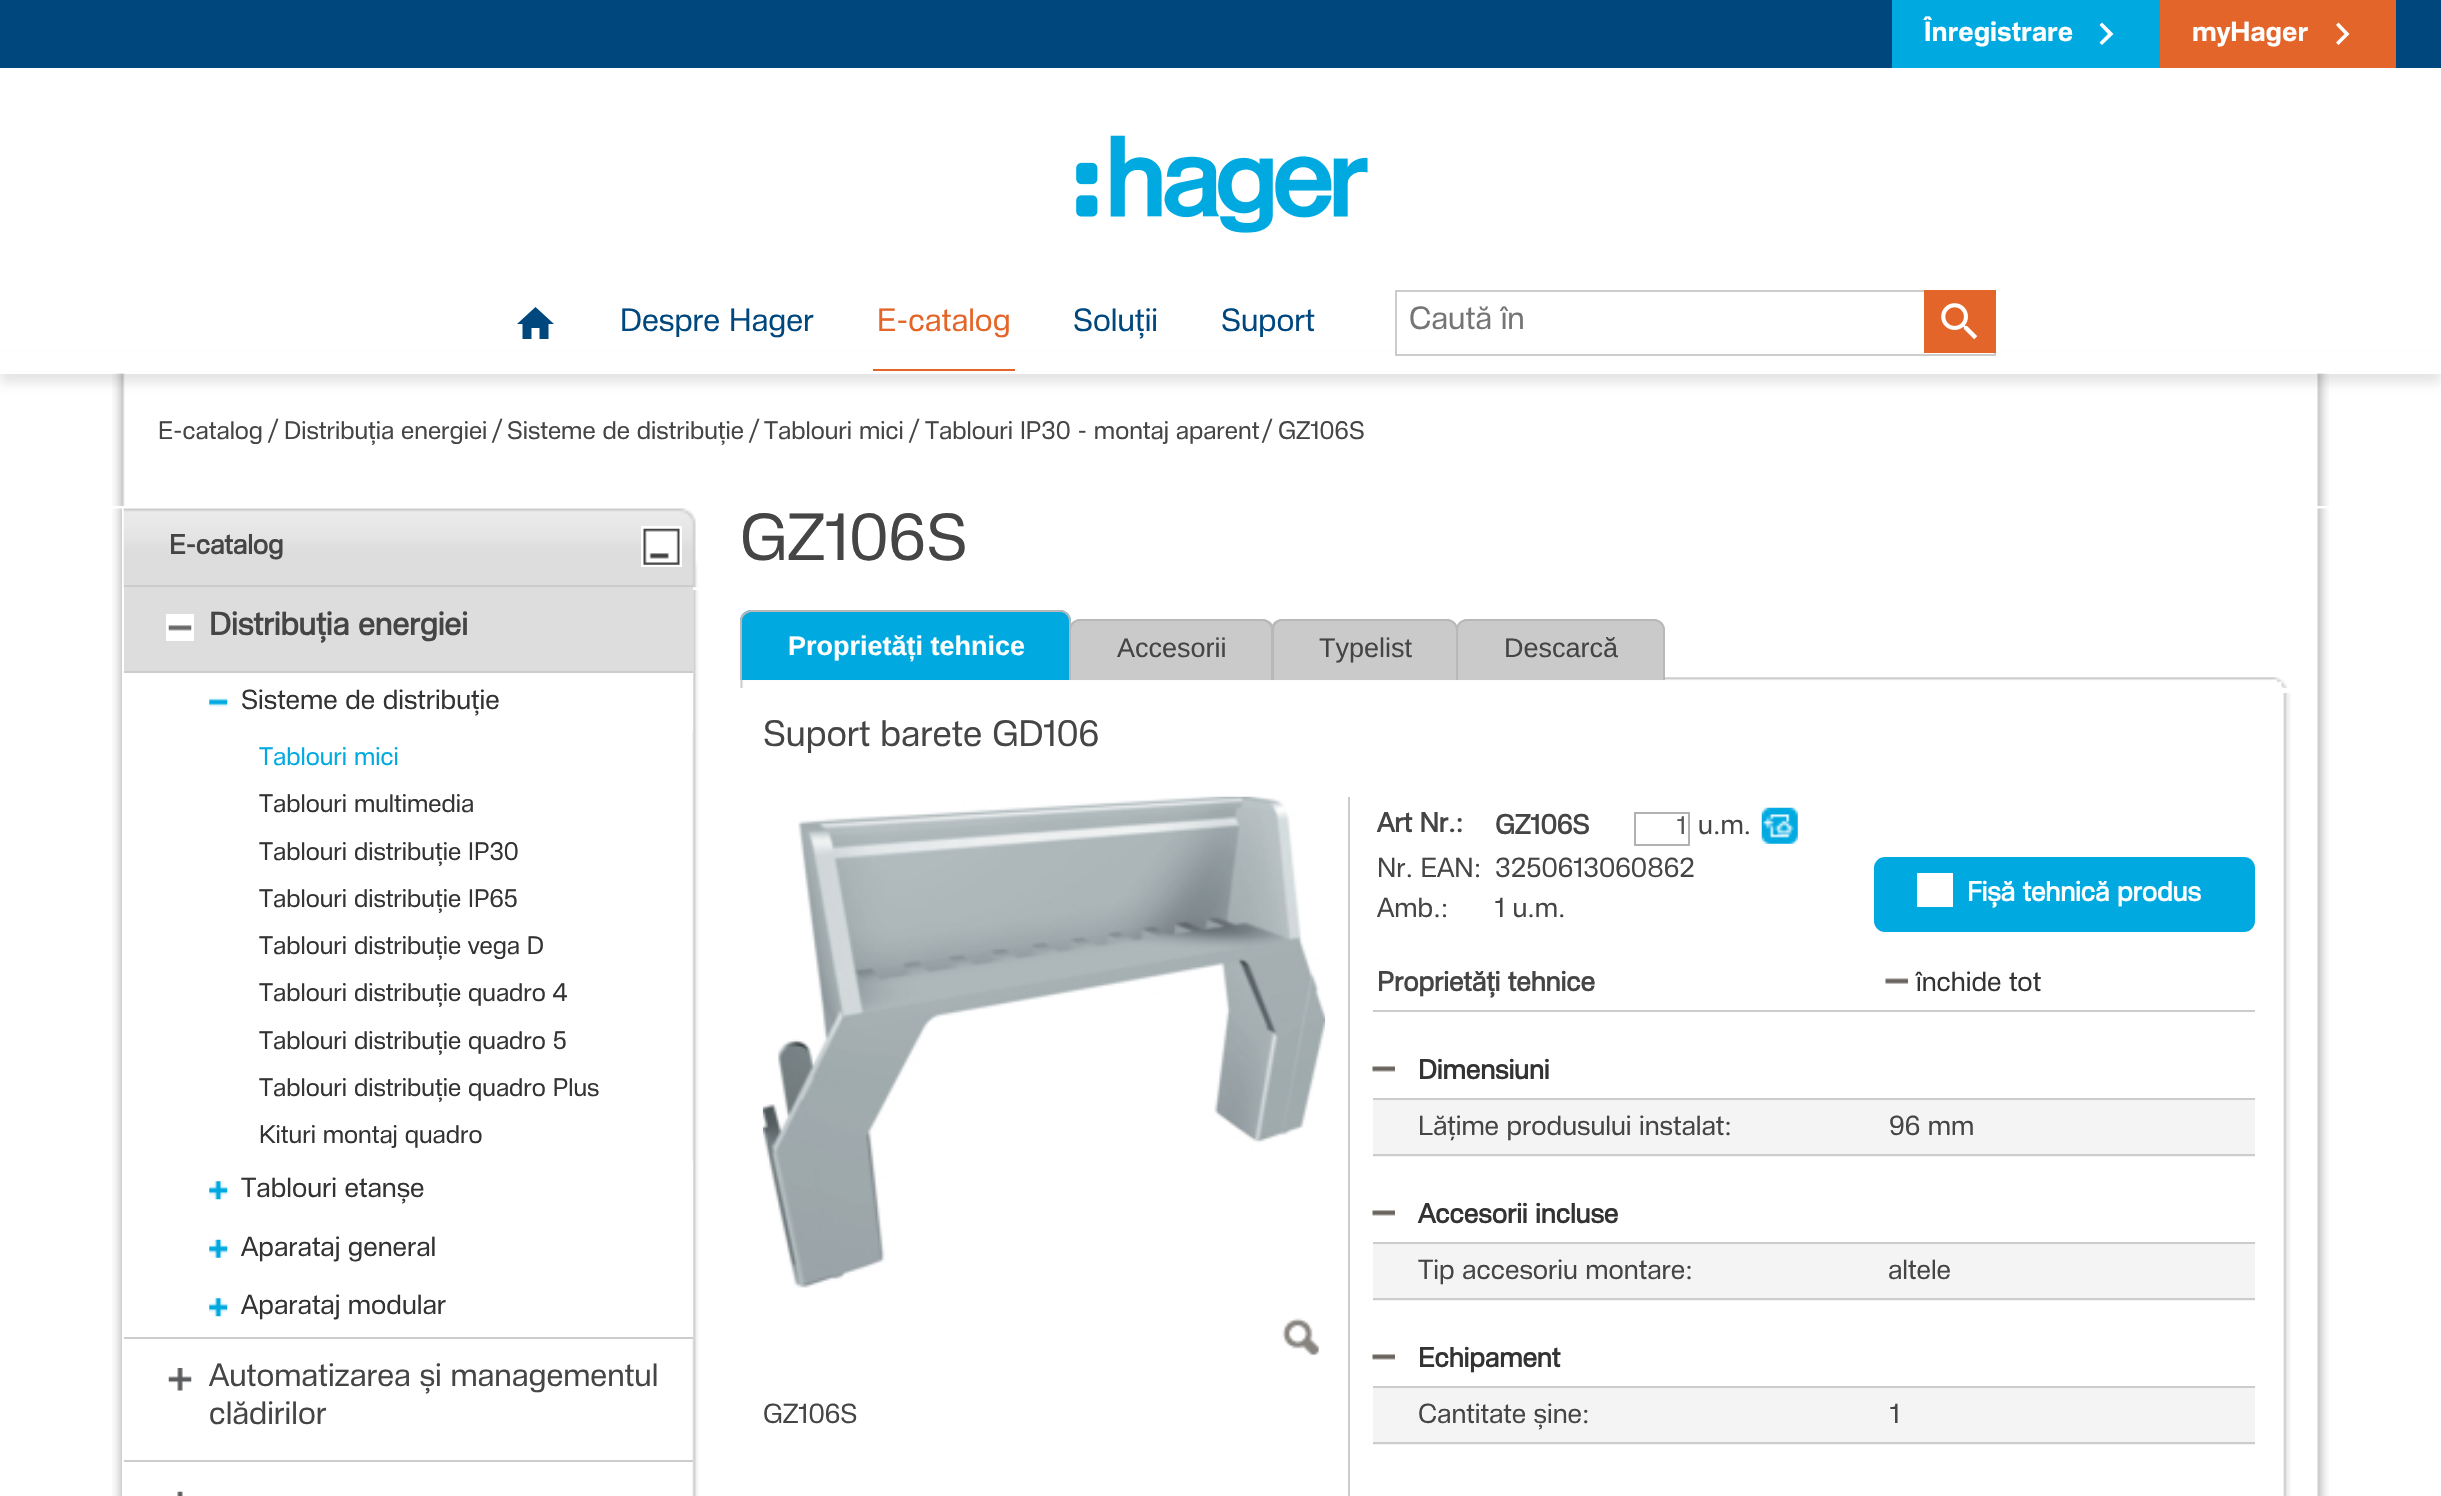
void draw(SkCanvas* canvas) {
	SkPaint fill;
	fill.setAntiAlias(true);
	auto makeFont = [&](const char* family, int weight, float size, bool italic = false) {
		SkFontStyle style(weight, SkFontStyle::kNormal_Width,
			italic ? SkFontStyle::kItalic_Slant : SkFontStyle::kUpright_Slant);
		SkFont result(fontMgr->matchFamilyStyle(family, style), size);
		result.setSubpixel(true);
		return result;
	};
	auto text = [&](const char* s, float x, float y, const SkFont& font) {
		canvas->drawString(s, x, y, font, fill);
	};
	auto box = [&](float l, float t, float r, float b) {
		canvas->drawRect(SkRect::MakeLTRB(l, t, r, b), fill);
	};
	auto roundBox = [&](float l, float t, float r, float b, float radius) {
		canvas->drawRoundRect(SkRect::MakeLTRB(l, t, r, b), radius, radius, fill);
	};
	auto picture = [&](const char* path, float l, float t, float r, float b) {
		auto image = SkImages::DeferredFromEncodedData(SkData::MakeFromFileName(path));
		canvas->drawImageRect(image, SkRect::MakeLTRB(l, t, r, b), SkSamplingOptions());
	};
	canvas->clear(0xFFFFFFFF);
	fill.setColor(0xFF00477E);
	box(0, 0, 2441, 68);
	fill.setColor(0xFF00AAE1);
	box(1892, 0, 2160, 68);
	fill.setColor(0xFFFFFFFF);
	canvas->drawPath(SkPathBuilder().moveTo(2102, 22.5f).lineTo(2113.5f, 34).lineTo(2102, 45).lineTo(2099.5f, 42.5f).lineTo(2108, 34).lineTo(2099.5f, 25).close().detach(), fill);
	fill.setColor(0xFFE46529);
	box(2160, 0, 2396, 68);
	fill.setColor(0xFFFFFFFF);
	canvas->drawPath(SkPathBuilder().moveTo(2338.5f, 22.5f).lineTo(2349.5f, 34).lineTo(2338.5f, 45).lineTo(2336, 42.5f).lineTo(2344.5f, 34).lineTo(2336, 25).close().detach(), fill);
	picture("image0.png", 1076, 135, 1368, 233);
	fill.setColor(0xFF00477E);
	canvas->drawPath(SkPathBuilder().moveTo(531.5f, 339).lineTo(522.5f, 339).lineTo(522.5f, 324).lineTo(517, 324).lineTo(535.5f, 307).lineTo(554, 324).lineTo(548.5f, 324).lineTo(548.5f, 339).lineTo(539.5f, 339).lineTo(539.5f, 328).lineTo(531.5f, 328).close().detach(), fill);
	fill.setColor(0xFFE46529);
	box(873, 369, 1015, 371);
	fill.setStyle(SkPaint::kStroke_Style);
	fill.setStrokeWidth(2);
	fill.setColor(0xFFCCCCCC);
	canvas->drawRect(SkRect::MakeLTRB(1396, 291, 1995, 355), fill);
	fill.setStyle(SkPaint::kFill_Style);
	fill.setColor(0xFFE46529);
	box(1924, 290, 1996, 353);
	picture("image1.png", 1941, 303, 1978, 340);
	picture("image2.png", 112, 371, 2329, 506);
	canvas->save();
	canvas->clipPath(SkPathBuilder(SkPathFillType::kEvenOdd).moveTo(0, 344).lineTo(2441, 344).lineTo(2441, 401).lineTo(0, 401).close().moveTo(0, 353).lineTo(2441, 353).lineTo(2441, 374).lineTo(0, 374).close().detach(), true);
	fill.setColor(0x1A000000);
	fill.setMaskFilter(SkMaskFilter::MakeBlur(kNormal_SkBlurStyle, 5.5f));
	canvas->drawRect(SkRect::MakeLTRB(0, 362, 2441, 383), fill);
	fill.setMaskFilter(nullptr);
	canvas->restore();
	picture("image3.png", 112, 506, 2329, 1496);
	picture("image4.png", 122, 508, 699, 1496);
	picture("image5.png", 123, 508, 699, 590);
	fill.setColor(0xFFCCCCCC);
	box(124, 585, 693, 587);
	picture("image6.png", 641, 526, 682, 567);
	fill.setColor(0xFFDDDDDD);
	box(124, 587, 693, 671);
	picture("image7.png", 166, 614, 194, 641);
	fill.setColor(0xFFCCCCCC);
	box(124, 671, 693, 673);
	box(124, 1337, 693, 1339);
	picture("image8.png", 209, 697, 228, 707);
	fill.setColor(0xFFFFFFFF);
	box(692, 673, 693, 731);
	picture("image9.png", 209, 1181, 228, 1200);
	box(692, 1161, 693, 1337);
	picture("image10.png", 209, 1239, 228, 1258);
	picture("image9.png", 209, 1298, 228, 1317);
	picture("image11.png", 168, 1368, 192, 1391);
	fill.setColor(0xFFCCCCCC);
	box(124, 1460, 693, 1462);
	picture("image12.png", 177, 1491, 183, 1496);
	picture("image13.png", 740, 677, 2290, 688);
	fill.setColor(0xFFCACACA);
	canvas->drawPath(SkPathBuilder().moveTo(1080, 619).lineTo(1263, 619).cubicTo(1269, 619, 1274, 624, 1274, 630).lineTo(1274, 680).lineTo(1069, 680).lineTo(1069, 630).cubicTo(1069, 624, 1074, 619, 1080, 619).close().detach(), fill);
	fill.setColor(0xFFB9B7B7);
	canvas->drawPath(SkPathBuilder(SkPathFillType::kEvenOdd).moveTo(1080, 619).lineTo(1262, 619).cubicTo(1268, 619, 1274, 624, 1274, 630).lineTo(1274, 680).lineTo(1069, 680).lineTo(1069, 630).cubicTo(1069, 624, 1074, 619, 1080, 619).close().moveTo(1080, 621).lineTo(1262, 621).cubicTo(1267, 621, 1271, 625, 1271, 630).lineTo(1271, 680).lineTo(1071, 680).lineTo(1071, 630).cubicTo(1071, 625, 1075, 621, 1080, 621).close().detach(), fill);
	fill.setColor(0xFF00AAE1);
	canvas->drawPath(SkPathBuilder().moveTo(751, 610).lineTo(1060, 610).cubicTo(1066, 610, 1071, 615, 1071, 621).lineTo(1071, 680).lineTo(740, 680).lineTo(740, 621).cubicTo(740, 615, 745, 610, 751, 610).close().detach(), fill);
	fill.setColor(0xFFB9B7B7);
	canvas->drawPath(SkPathBuilder(SkPathFillType::kEvenOdd).moveTo(752, 610).lineTo(1060, 610).cubicTo(1066, 610, 1071, 615, 1071, 621).lineTo(1071, 680).lineTo(740, 680).lineTo(740, 621).cubicTo(740, 615, 745, 610, 752, 610).close().moveTo(752, 612).lineTo(1060, 612).cubicTo(1065, 612, 1069, 616, 1069, 621).lineTo(1069, 680).lineTo(742, 680).lineTo(742, 621).cubicTo(742, 616, 747, 612, 752, 612).close().detach(), fill);
	fill.setColor(0xFFCACACA);
	canvas->drawPath(SkPathBuilder().moveTo(1282, 619).lineTo(1447, 619).cubicTo(1453, 619, 1458, 624, 1458, 630).lineTo(1458, 680).lineTo(1271, 680).lineTo(1271, 630).cubicTo(1271, 624, 1276, 619, 1282, 619).close().detach(), fill);
	fill.setColor(0xFFB9B7B7);
	canvas->drawPath(SkPathBuilder(SkPathFillType::kEvenOdd).moveTo(1282, 619).lineTo(1447, 619).cubicTo(1453, 619, 1458, 624, 1458, 630).lineTo(1458, 680).lineTo(1271, 680).lineTo(1271, 630).cubicTo(1271, 624, 1276, 619, 1282, 619).close().moveTo(1282, 621).lineTo(1447, 621).cubicTo(1452, 621, 1456, 625, 1456, 630).lineTo(1456, 680).lineTo(1274, 680).lineTo(1274, 630).cubicTo(1274, 625, 1278, 621, 1282, 621).close().detach(), fill);
	fill.setColor(0xFFCACACA);
	canvas->drawPath(SkPathBuilder().moveTo(1467, 619).lineTo(1654, 619).cubicTo(1660, 619, 1665, 624, 1665, 630).lineTo(1665, 680).lineTo(1456, 680).lineTo(1456, 630).cubicTo(1456, 624, 1461, 619, 1467, 619).close().detach(), fill);
	fill.setColor(0xFFB9B7B7);
	canvas->drawPath(SkPathBuilder(SkPathFillType::kEvenOdd).moveTo(1467, 619).lineTo(1654, 619).cubicTo(1660, 619, 1665, 624, 1665, 630).lineTo(1665, 680).lineTo(1456, 680).lineTo(1456, 630).cubicTo(1456, 624, 1461, 619, 1467, 619).close().moveTo(1467, 621).lineTo(1654, 621).cubicTo(1659, 621, 1663, 625, 1663, 630).lineTo(1663, 680).lineTo(1458, 680).lineTo(1458, 630).cubicTo(1458, 625, 1462, 621, 1467, 621).close().detach(), fill);
	picture("image14.png", 740, 688, 2290, 693);
	picture("image15.png", 740, 693, 2291, 1496);
	fill.setColor(0xFFCCCCCC);
	box(1348, 797, 1350, 1496);
	picture("image16.png", 762, 796, 1326, 1288);
	picture("image17.png", 1282, 1318, 1320, 1356);
	fill.setStyle(SkPaint::kStroke_Style);
	fill.setColor(0xFFB2B2B2);
	canvas->drawRect(SkRect::MakeLTRB(1635, 813, 1689, 845), fill);
	picture("image18.png", 1761, 807, 1798, 844);
	fill.setStyle(SkPaint::kFill_Style);
	fill.setColor(0xFF00AAE1);
	roundBox(1874, 857, 2255, 932, 11);
	fill.setColor(0xFFFFFFFF);
	box(1917, 873, 1953, 907);
	fill.setColor(0xFFCCCCCC);
	box(1373, 1010, 2255, 1012);
	picture("image19.png", 1885, 978, 1908, 984);
	box(1373, 1098, 2255, 1100);
	picture("image20.png", 1372, 1066, 1395, 1072);
	fill.setColor(0xFFF4F4F4);
	box(1373, 1100, 2255, 1157);
	fill.setColor(0xFFCCCCCC);
	box(1373, 1154, 2255, 1156);
	box(1373, 1242, 2255, 1244);
	picture("image20.png", 1372, 1210, 1395, 1216);
	fill.setColor(0xFFF4F4F4);
	box(1373, 1244, 2255, 1301);
	fill.setColor(0xFFCCCCCC);
	box(1373, 1298, 2255, 1300);
	box(1373, 1386, 2255, 1388);
	picture("image20.png", 1372, 1354, 1395, 1360);
	fill.setColor(0xFFF4F4F4);
	box(1373, 1388, 2255, 1445);
	fill.setColor(0xFFCCCCCC);
	box(1373, 1442, 2255, 1444);
	auto font1 = makeFont("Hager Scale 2", 700, 27);
	fill.setColor(0xFFFFFFFF);
	text("Înregistrare", 1924, 41, font1);
	text("myHager", 2192, 41, font1);
	auto font2 = makeFont("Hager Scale", 400, 31.5f);
	fill.setColor(0xFF00477E);
	text("Despre Hager", 620, 331, font2);
	fill.setColor(0xFFE46529);
	text("E-catalog", 877, 331, font2);
	fill.setColor(0xFF00477E);
	text("Soluții", 1073, 331, font2);
	text("Suport", 1221, 331, font2);
	fill.setColor(0xFF757575);
	text("Caută în", 1409, 329, font2);
	auto font3 = makeFont("Hager Scale", 400, 24.75f);
	fill.setColor(0xFF454545);
	text("E-catalog", 158, 439, font3);
	text("/", 269, 439, font3);
	text("Distribuția energiei", 284, 439, font3);
	text("/", 493, 439, font3);
	text("Sisteme de distribuție", 507, 439, font3);
	text("/", 750, 439, font3);
	text("Tablouri mici", 764, 439, font3);
	text("/", 910, 439, font3);
	text("Tablouri IP30 - montaj aparent", 925, 439, font3);
	text("/", 1263, 439, font3);
	text("GZ106S", 1278, 439, font3);
	auto font4 = makeFont("Hager Scale", 700, 27);
	text("E-catalog", 169, 554, font4);
	auto font5 = makeFont("Hager Scale", 700, 31.5f);
	text("Distribuția energiei", 209, 635, font5);
	auto font6 = makeFont("Hager Scale", 400, 27);
	fill.setColor(0xFF333333);
	text("Sisteme de distribuție", 241, 709, font6);
	fill.setColor(0xFF00AAE1);
	text("Tablouri mici", 259, 765, font3);
	fill.setColor(0xFF333333);
	text("Tablouri multimedia", 259, 812, font3);
	text("Tablouri distribuție IP30", 259, 860, font3);
	text("Tablouri distribuție IP65", 259, 907, font3);
	text("Tablouri distribuție vega D", 259, 954, font3);
	text("Tablouri distribuție quadro 4", 259, 1001, font3);
	text("Tablouri distribuție quadro 5", 259, 1049, font3);
	text("Tablouri distribuție quadro Plus", 259, 1096, font3);
	text("Kituri montaj quadro", 259, 1143, font3);
	text("Tablouri etanșe", 241, 1197, font6);
	text("Aparataj general", 241, 1256, font6);
	text("Aparataj modular", 241, 1314, font6);
	fill.setColor(0xFF454545);
	text("Automatizarea și managementul", 209, 1386, font2);
	text("clădirilor", 209, 1424, font2);
	auto font7 = makeFont("Hager Scale", 400, 65);
	text("GZ106S", 740, 560, font7);
	auto font8 = makeFont("Liberation Sans", 700, 27);
	fill.setColor(0xFFFFFFFF);
	text("Proprietăți tehnice", 788, 655, font8);
	auto font9 = makeFont("Liberation Sans", 400, 27);
	fill.setColor(0xFF454545);
	text("Accesorii", 1117, 657, font9);
	text("Typelist", 1319, 657, font9);
	text("Descarcă", 1504, 657, font9);
	auto font10 = makeFont("Hager Scale", 400, 36);
	text("Suport barete GD106", 763, 746, font10);
	text("GZ106S", 763, 1423, font6);
	text("Art Nr.:", 1377, 832, font4);
	text("GZ106S", 1495, 834, font4);
	fill.setColor(0xFF555555);
	text("1", 1677, 834, font3);
	fill.setColor(0xFF454545);
	text("u.m.", 1698, 834, font6);
	text("Nr. EAN:", 1377, 877, font6);
	text("3250613060862", 1495, 877, font6);
	text("Amb.:", 1377, 917, font6);
	text("1 u.m.", 1495, 917, font6);
	fill.setColor(0xFFFFFFFF);
	text("Fișă tehnică produs", 1967, 901, font4);
	fill.setColor(0xFF454545);
	text("Proprietăți tehnice", 1377, 991, font4);
	fill.setColor(0xFF333333);
	text("închide tot", 1916, 991, font6);
	text("Dimensiuni", 1418, 1079, font4);
	fill.setColor(0xFF454545);
	text("Lăţime produsului instalat:", 1418, 1135, font6);
	text("96 mm", 1889, 1135, font6);
	fill.setColor(0xFF333333);
	text("Accesorii incluse", 1418, 1223, font4);
	fill.setColor(0xFF454545);
	text("Tip accesoriu montare:", 1418, 1279, font6);
	text("altele", 1888, 1279, font6);
	fill.setColor(0xFF333333);
	text("Echipament", 1418, 1367, font4);
	fill.setColor(0xFF454545);
	text("Cantitate șine:", 1418, 1423, font6);
	text("1", 1890, 1423, font6);
}
